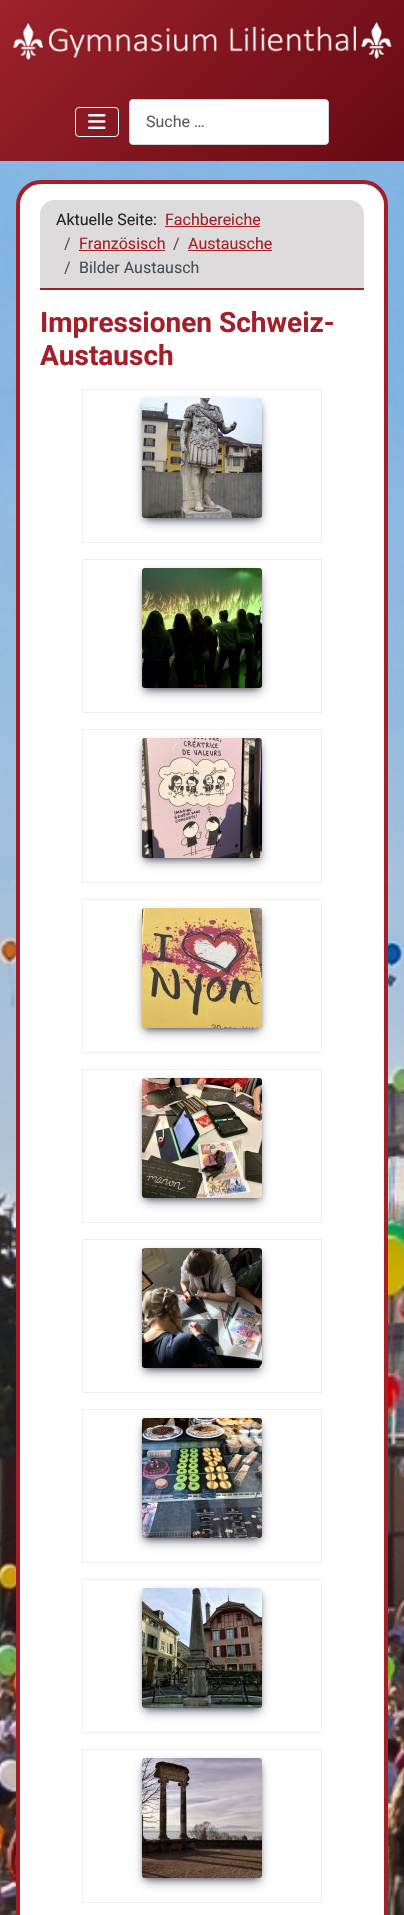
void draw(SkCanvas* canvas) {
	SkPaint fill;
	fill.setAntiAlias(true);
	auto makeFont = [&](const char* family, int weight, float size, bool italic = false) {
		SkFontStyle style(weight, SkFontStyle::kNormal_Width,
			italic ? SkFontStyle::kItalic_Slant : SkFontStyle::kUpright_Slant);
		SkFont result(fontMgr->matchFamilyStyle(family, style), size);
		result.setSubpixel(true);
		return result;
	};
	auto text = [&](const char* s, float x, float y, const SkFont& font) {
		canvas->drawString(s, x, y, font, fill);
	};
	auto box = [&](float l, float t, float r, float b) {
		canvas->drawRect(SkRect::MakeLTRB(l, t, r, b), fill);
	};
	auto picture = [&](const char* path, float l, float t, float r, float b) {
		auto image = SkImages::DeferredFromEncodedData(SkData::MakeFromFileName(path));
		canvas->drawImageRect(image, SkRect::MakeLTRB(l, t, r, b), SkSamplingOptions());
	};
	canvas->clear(0xFFFFFFFF);
	picture("image0.png", 0, 161, 404, 1915);
	{
		const SkColor colors[] = {0xFF9D222C, 0xFF660912};
		const float stops[] = {0, 1};
		const SkPoint ends[] = {{61, -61}, {343, 222}};
		fill.setShader(SkGradientShader::MakeLinear(ends, colors, stops, 2, SkTileMode::kClamp));
		fill.setAlpha(255);
	}
	box(0, 0, 404, 161);
	picture("image1.png", 13, 22, 392, 60);
	fill.setStyle(SkPaint::kStroke_Style);
	fill.setStrokeWidth(1);
	fill.setShader(nullptr);
	fill.setColor(0xFFFFFFFF);
	canvas->drawRoundRect(SkRect::MakeLTRB(75.5f, 107.5f, 118.5f, 136.5f), 3.5f, 3.5f, fill);
	picture("image2.png", 88, 114, 106, 129);
	fill.setStyle(SkPaint::kFill_Style);
	canvas->drawRoundRect(SkRect::MakeLTRB(129.5f, 99.5f, 328.5f, 144.5f), 3.5f, 3.5f, fill);
	fill.setStyle(SkPaint::kStroke_Style);
	fill.setColor(0xFFCED4DA);
	canvas->drawRoundRect(SkRect::MakeLTRB(129.5f, 99.5f, 328.5f, 144.5f), 3.5f, 3.5f, fill);
	fill.setStyle(SkPaint::kFill_Style);
	fill.setColor(0xFFFFFFFF);
	canvas->drawRoundRect(SkRect::MakeLTRB(18, 182, 386, 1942), 23, 23, fill);
	fill.setStyle(SkPaint::kStroke_Style);
	fill.setStrokeWidth(4);
	fill.setColor(0xFFA32028);
	canvas->drawRoundRect(SkRect::MakeLTRB(18, 182, 386, 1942), 23, 23, fill);
	fill.setStyle(SkPaint::kFill_Style);
	fill.setColor(0xFFDDDBDB);
	canvas->drawPath(SkPathBuilder().moveTo(55, 200).lineTo(349, 200).cubicTo(357.5f, 200, 364, 206.5f, 364, 215).lineTo(364, 290).lineTo(40, 290).lineTo(40, 215).cubicTo(40, 206.5f, 46.5f, 200, 55, 200).close().detach(), fill);
	fill.setColor(0xFFA32028);
	box(40, 288, 364, 290);
	box(165, 226, 260, 227);
	box(79, 250, 165, 251);
	box(188, 250, 272, 251);
	fill.setStyle(SkPaint::kStroke_Style);
	fill.setStrokeWidth(1);
	fill.setColor(0xFFF0F0F0);
	canvas->drawRect(SkRect::MakeLTRB(82.5f, 389.5f, 321.5f, 542.5f), fill);
	fill.setStyle(SkPaint::kFill_Style);
	fill.setColor(0x6632325D);
	fill.setMaskFilter(SkMaskFilter::MakeBlur(kNormal_SkBlurStyle, 6));
	canvas->drawRoundRect(SkRect::MakeLTRB(144, 406, 260, 522), 1, 1, fill);
	fill.setMaskFilter(nullptr);
	fill.setColor(0xB3000000);
	fill.setMaskFilter(SkMaskFilter::MakeBlur(kNormal_SkBlurStyle, 3.5f));
	canvas->drawRect(SkRect::MakeLTRB(145, 404, 259, 518), fill);
	fill.setMaskFilter(nullptr);
	picture("image3.png", 142, 398, 262, 518);
	fill.setStyle(SkPaint::kStroke_Style);
	fill.setColor(0xFFF0F0F0);
	canvas->drawRect(SkRect::MakeLTRB(82.5f, 559.5f, 321.5f, 712.5f), fill);
	fill.setStyle(SkPaint::kFill_Style);
	fill.setColor(0x6632325D);
	fill.setMaskFilter(SkMaskFilter::MakeBlur(kNormal_SkBlurStyle, 6));
	canvas->drawRoundRect(SkRect::MakeLTRB(144, 576, 260, 692), 1, 1, fill);
	fill.setMaskFilter(nullptr);
	fill.setColor(0xB3000000);
	fill.setMaskFilter(SkMaskFilter::MakeBlur(kNormal_SkBlurStyle, 3.5f));
	canvas->drawRect(SkRect::MakeLTRB(145, 574, 259, 688), fill);
	fill.setMaskFilter(nullptr);
	picture("image4.png", 142, 568, 262, 688);
	fill.setStyle(SkPaint::kStroke_Style);
	fill.setColor(0xFFF0F0F0);
	canvas->drawRect(SkRect::MakeLTRB(82.5f, 729.5f, 321.5f, 882.5f), fill);
	fill.setStyle(SkPaint::kFill_Style);
	fill.setColor(0x6632325D);
	fill.setMaskFilter(SkMaskFilter::MakeBlur(kNormal_SkBlurStyle, 6));
	canvas->drawRoundRect(SkRect::MakeLTRB(144, 746, 260, 862), 1, 1, fill);
	fill.setMaskFilter(nullptr);
	fill.setColor(0xB3000000);
	fill.setMaskFilter(SkMaskFilter::MakeBlur(kNormal_SkBlurStyle, 3.5f));
	canvas->drawRect(SkRect::MakeLTRB(145, 744, 259, 858), fill);
	fill.setMaskFilter(nullptr);
	picture("image5.png", 142, 738, 262, 858);
	fill.setStyle(SkPaint::kStroke_Style);
	fill.setColor(0xFFF0F0F0);
	canvas->drawRect(SkRect::MakeLTRB(82.5f, 899.5f, 321.5f, 1052.5f), fill);
	fill.setStyle(SkPaint::kFill_Style);
	fill.setColor(0x6632325D);
	fill.setMaskFilter(SkMaskFilter::MakeBlur(kNormal_SkBlurStyle, 6));
	canvas->drawRoundRect(SkRect::MakeLTRB(144, 916, 260, 1032), 1, 1, fill);
	fill.setMaskFilter(nullptr);
	fill.setColor(0xB3000000);
	fill.setMaskFilter(SkMaskFilter::MakeBlur(kNormal_SkBlurStyle, 3.5f));
	canvas->drawRect(SkRect::MakeLTRB(145, 914, 259, 1028), fill);
	fill.setMaskFilter(nullptr);
	picture("image6.png", 142, 908, 262, 1028);
	fill.setStyle(SkPaint::kStroke_Style);
	fill.setColor(0xFFF0F0F0);
	canvas->drawRect(SkRect::MakeLTRB(82.5f, 1069.5f, 321.5f, 1222.5f), fill);
	fill.setStyle(SkPaint::kFill_Style);
	fill.setColor(0x6632325D);
	fill.setMaskFilter(SkMaskFilter::MakeBlur(kNormal_SkBlurStyle, 6));
	canvas->drawRoundRect(SkRect::MakeLTRB(144, 1086, 260, 1202), 1, 1, fill);
	fill.setMaskFilter(nullptr);
	fill.setColor(0xB3000000);
	fill.setMaskFilter(SkMaskFilter::MakeBlur(kNormal_SkBlurStyle, 3.5f));
	canvas->drawRect(SkRect::MakeLTRB(145, 1084, 259, 1198), fill);
	fill.setMaskFilter(nullptr);
	picture("image7.png", 142, 1078, 262, 1198);
	fill.setStyle(SkPaint::kStroke_Style);
	fill.setColor(0xFFF0F0F0);
	canvas->drawRect(SkRect::MakeLTRB(82.5f, 1239.5f, 321.5f, 1392.5f), fill);
	fill.setStyle(SkPaint::kFill_Style);
	fill.setColor(0x6632325D);
	fill.setMaskFilter(SkMaskFilter::MakeBlur(kNormal_SkBlurStyle, 6));
	canvas->drawRoundRect(SkRect::MakeLTRB(144, 1256, 260, 1372), 1, 1, fill);
	fill.setMaskFilter(nullptr);
	fill.setColor(0xB3000000);
	fill.setMaskFilter(SkMaskFilter::MakeBlur(kNormal_SkBlurStyle, 3.5f));
	canvas->drawRect(SkRect::MakeLTRB(145, 1254, 259, 1368), fill);
	fill.setMaskFilter(nullptr);
	picture("image8.png", 142, 1248, 262, 1368);
	fill.setStyle(SkPaint::kStroke_Style);
	fill.setColor(0xFFF0F0F0);
	canvas->drawRect(SkRect::MakeLTRB(82.5f, 1409.5f, 321.5f, 1562.5f), fill);
	fill.setStyle(SkPaint::kFill_Style);
	fill.setColor(0x6632325D);
	fill.setMaskFilter(SkMaskFilter::MakeBlur(kNormal_SkBlurStyle, 6));
	canvas->drawRoundRect(SkRect::MakeLTRB(144, 1426, 260, 1542), 1, 1, fill);
	fill.setMaskFilter(nullptr);
	fill.setColor(0xB3000000);
	fill.setMaskFilter(SkMaskFilter::MakeBlur(kNormal_SkBlurStyle, 3.5f));
	canvas->drawRect(SkRect::MakeLTRB(145, 1424, 259, 1538), fill);
	fill.setMaskFilter(nullptr);
	picture("image9.png", 142, 1418, 262, 1538);
	fill.setStyle(SkPaint::kStroke_Style);
	fill.setColor(0xFFF0F0F0);
	canvas->drawRect(SkRect::MakeLTRB(82.5f, 1579.5f, 321.5f, 1732.5f), fill);
	fill.setStyle(SkPaint::kFill_Style);
	fill.setColor(0x6632325D);
	fill.setMaskFilter(SkMaskFilter::MakeBlur(kNormal_SkBlurStyle, 6));
	canvas->drawRoundRect(SkRect::MakeLTRB(144, 1596, 260, 1712), 1, 1, fill);
	fill.setMaskFilter(nullptr);
	fill.setColor(0xB3000000);
	fill.setMaskFilter(SkMaskFilter::MakeBlur(kNormal_SkBlurStyle, 3.5f));
	canvas->drawRect(SkRect::MakeLTRB(145, 1594, 259, 1708), fill);
	fill.setMaskFilter(nullptr);
	picture("image10.png", 142, 1588, 262, 1708);
	fill.setStyle(SkPaint::kStroke_Style);
	fill.setColor(0xFFF0F0F0);
	canvas->drawRect(SkRect::MakeLTRB(82.5f, 1749.5f, 321.5f, 1902.5f), fill);
	fill.setStyle(SkPaint::kFill_Style);
	fill.setColor(0x6632325D);
	fill.setMaskFilter(SkMaskFilter::MakeBlur(kNormal_SkBlurStyle, 6));
	canvas->drawRoundRect(SkRect::MakeLTRB(144, 1766, 260, 1882), 1, 1, fill);
	fill.setMaskFilter(nullptr);
	fill.setColor(0xB3000000);
	fill.setMaskFilter(SkMaskFilter::MakeBlur(kNormal_SkBlurStyle, 3.5f));
	canvas->drawRect(SkRect::MakeLTRB(145, 1764, 259, 1878), fill);
	fill.setMaskFilter(nullptr);
	picture("image11.png", 142, 1758, 262, 1878);
	auto font1 = makeFont("Roboto", 400, 16);
	fill.setColor(0xFF595C5F);
	text("Suche …", 146, 127, font1);
	fill.setColor(0xFF22262A);
	text("Aktuelle Seite:", 56, 225, font1);
	fill.setColor(0xFFA32028);
	text("Fachbereiche", 165, 225, font1);
	fill.setColor(0xFF515356);
	text("/", 64, 249, font1);
	fill.setColor(0xFFA32028);
	text("Französisch", 79, 249, font1);
	fill.setColor(0xFF515356);
	text("/", 173, 249, font1);
	fill.setColor(0xFFA32028);
	text("Austausche", 188, 249, font1);
	fill.setColor(0xFF515356);
	text("/", 64, 273, font1);
	fill.setColor(0xFF484F56);
	text("Bilder Austausch", 79, 273, font1);
	auto font2 = makeFont("Roboto", 700, 28);
	fill.setColor(0xFFA32028);
	text("Impressionen Schweiz-", 40, 332, font2);
	text("Austausch", 40, 365, font2);
}
